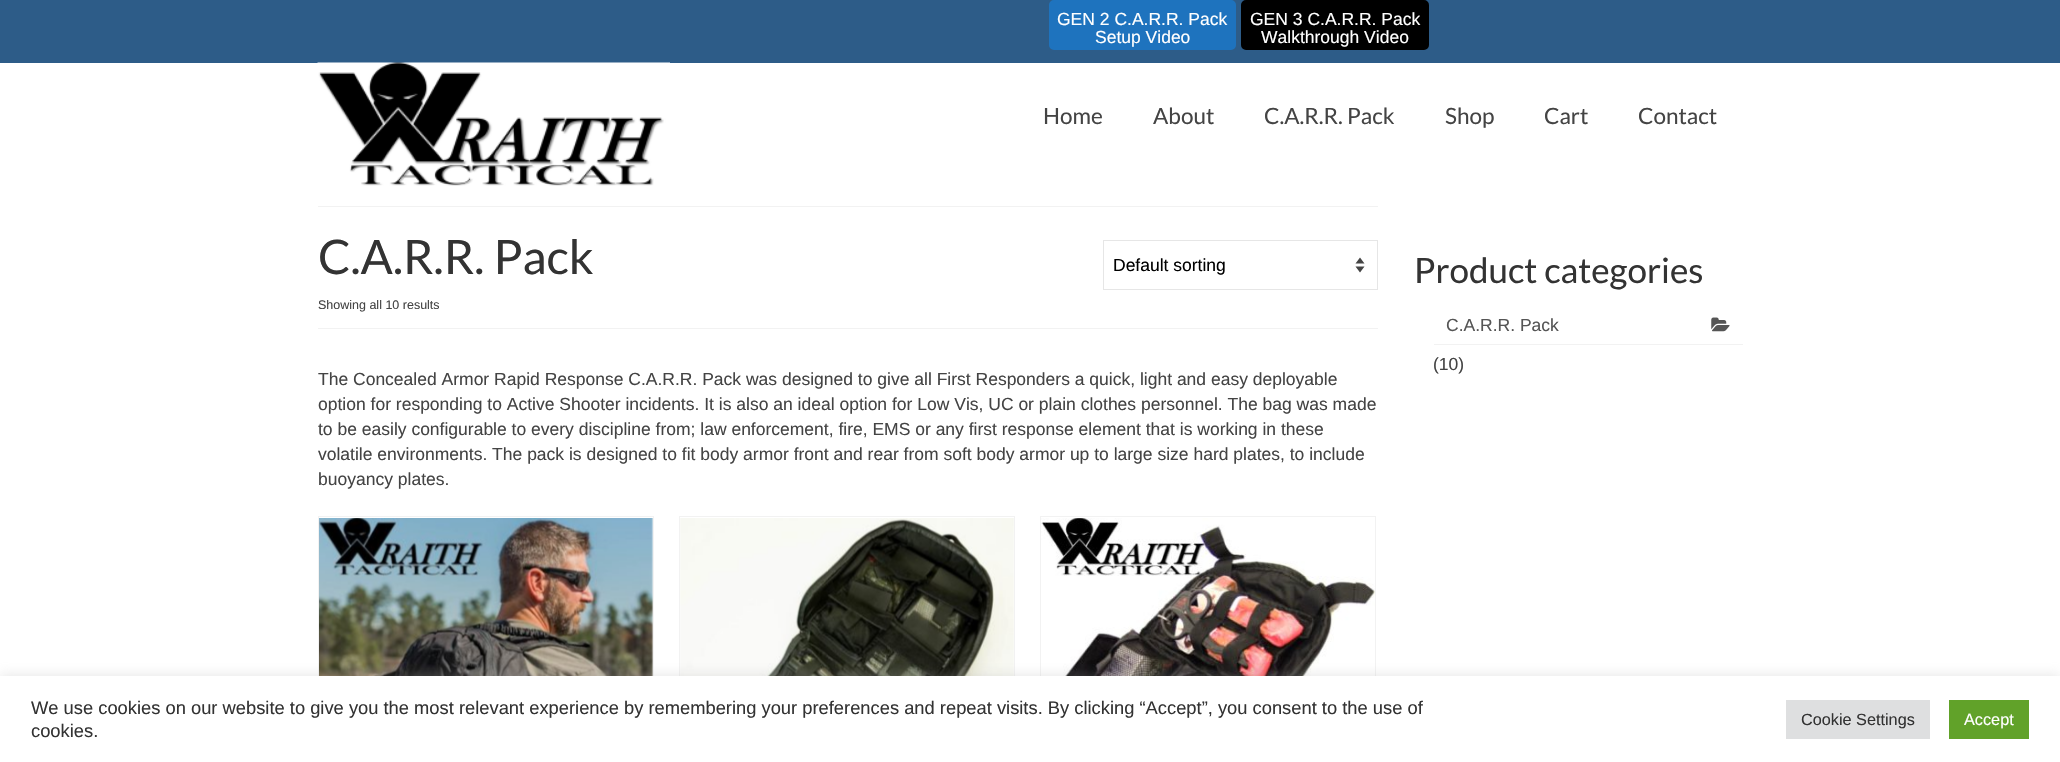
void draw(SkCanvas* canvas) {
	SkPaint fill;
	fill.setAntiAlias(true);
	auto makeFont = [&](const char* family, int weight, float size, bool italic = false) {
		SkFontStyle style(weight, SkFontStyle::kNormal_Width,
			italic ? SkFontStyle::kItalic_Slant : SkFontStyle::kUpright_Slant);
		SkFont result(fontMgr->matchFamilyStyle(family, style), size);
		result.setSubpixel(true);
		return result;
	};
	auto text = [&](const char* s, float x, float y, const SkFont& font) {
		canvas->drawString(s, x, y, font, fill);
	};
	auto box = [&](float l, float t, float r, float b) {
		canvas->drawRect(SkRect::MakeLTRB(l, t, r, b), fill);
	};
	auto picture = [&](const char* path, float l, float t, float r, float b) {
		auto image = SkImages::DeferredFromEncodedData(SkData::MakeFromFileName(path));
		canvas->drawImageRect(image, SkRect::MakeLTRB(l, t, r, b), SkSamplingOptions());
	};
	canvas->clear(0xFFFFFFFF);
	fill.setColor(0xFF2D5C88);
	box(0, 0, 2060, 63);
	fill.setColor(0xFF1E73BE);
	canvas->drawRoundRect(SkRect::MakeLTRB(1050.5f, 1.5f, 1234.5f, 48.5f), 3.5f, 3.5f, fill);
	fill.setStyle(SkPaint::kStroke_Style);
	fill.setStrokeWidth(3);
	canvas->drawRoundRect(SkRect::MakeLTRB(1050.5f, 1.5f, 1234.5f, 48.5f), 3.5f, 3.5f, fill);
	fill.setStyle(SkPaint::kFill_Style);
	fill.setColor(0xFF000000);
	canvas->drawRoundRect(SkRect::MakeLTRB(1242.5f, 1.5f, 1427.5f, 48.5f), 3.5f, 3.5f, fill);
	fill.setStyle(SkPaint::kStroke_Style);
	canvas->drawRoundRect(SkRect::MakeLTRB(1242.5f, 1.5f, 1427.5f, 48.5f), 3.5f, 3.5f, fill);
	picture("image0.png", 317, 62, 670, 186);
	fill.setStyle(SkPaint::kFill_Style);
	fill.setColor(0xFFF2F2F2);
	box(318, 206, 1378, 207);
	box(318, 328, 1378, 329);
	fill.setColor(0xFF444444);
	canvas->drawPath(SkPathBuilder().moveTo(1355.5f, 263.5f).lineTo(1360, 257.5f).lineTo(1364.5f, 263.5f).close().moveTo(1364.5f, 266.5f).lineTo(1360, 272.5f).lineTo(1355.5f, 266.5f).close().detach(), fill);
	fill.setStyle(SkPaint::kStroke_Style);
	fill.setStrokeWidth(1);
	fill.setColor(0xFFE6E6E6);
	canvas->drawRect(SkRect::MakeLTRB(1103.5f, 240.5f, 1377.5f, 289.5f), fill);
	fill.setColor(0xFFF2F2F2);
	canvas->drawRect(SkRect::MakeLTRB(318.5f, 516.5f, 653.5f, 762.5f), fill);
	picture("image1.png", 319, 518, 653, 676);
	canvas->drawRect(SkRect::MakeLTRB(679.5f, 516.5f, 1014.5f, 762.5f), fill);
	picture("image2.png", 680, 518, 1014, 676);
	canvas->drawRect(SkRect::MakeLTRB(1040.5f, 516.5f, 1375.5f, 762.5f), fill);
	picture("image3.png", 1041, 518, 1375, 676);
	fill.setStyle(SkPaint::kFill_Style);
	box(1434, 344, 1743, 345);
	picture("image4.png", 1711, 317, 1730, 332);
	fill.setColor(0x4DACABAB);
	fill.setMaskFilter(SkMaskFilter::MakeBlur(kNormal_SkBlurStyle, 6));
	canvas->drawRect(SkRect::MakeLTRB(0, 675, 2060, 761), fill);
	fill.setMaskFilter(nullptr);
	fill.setColor(0xFFFFFFFF);
	box(0, 676, 2060, 762);
	fill.setColor(0xFFDEDFE0);
	box(1786, 700, 1930, 739);
	fill.setColor(0xFF61A229);
	box(1949, 700, 2029, 739);
	auto font1 = makeFont("Liberation Sans", 400, 17.5f);
	fill.setColor(0xFFFFFFFF);
	text("GEN 2 C.A.R.R. Pack", 1057, 25, font1);
	text("Setup Video", 1095, 43, font1);
	text("GEN 3 C.A.R.R. Pack", 1250, 25, font1);
	text("Walkthrough Video", 1261, 43, font1);
	auto font2 = makeFont("Lato", 400, 22.5f);
	fill.setColor(0xFF444444);
	text("Home", 1043, 124, font2);
	text("About", 1153, 124, font2);
	text("C.A.R.R. Pack", 1264, 124, font2);
	text("Shop", 1445, 124, font2);
	text("Cart", 1544, 124, font2);
	text("Contact", 1638, 124, font2);
	auto font3 = makeFont("Lato", 400, 47.5f);
	fill.setColor(0xFF333333);
	text("C.A.R.R. Pack", 318, 274, font3);
	fill.setColor(0xFF000000);
	text("Default sorting", 1113, 271, font1);
	auto font4 = makeFont("Liberation Sans", 400, 12.5f);
	fill.setColor(0xFF444444);
	text("Showing all 10 results", 318, 309, font4);
	text("The Concealed Armor Rapid Response C.A.R.R. Pack was designed to give all First Responders a quick, light and easy deployable", 318, 385, font1);
	text("option for responding to Active Shooter incidents. It is also an ideal option for Low Vis, UC or plain clothes personnel. The bag was made", 318, 410, font1);
	text("to be easily configurable to every discipline from; law enforcement, fire, EMS or any first response element that is working in these", 318, 435, font1);
	text("volatile environments. The pack is designed to fit body armor front and rear from soft body armor up to large size hard plates, to include", 318, 460, font1);
	text("buoyancy plates.", 318, 485, font1);
	auto font5 = makeFont("Lato", 400, 35);
	fill.setColor(0xFF333333);
	text("Product categories", 1414, 283, font5);
	fill.setColor(0xFF555555);
	text("C.A.R.R. Pack", 1446, 331, font1);
	fill.setColor(0xFF444444);
	text("(10)", 1433, 370, font1);
	auto font6 = makeFont("Liberation Sans", 400, 18.33f);
	fill.setColor(0xFF333333);
	text("We use cookies on our website to give you the most relevant experience by remembering your preferences and repeat visits. By clicking “Accept”, you consent to the use of", 31, 714, font6);
	text("cookies.", 31, 737, font6);
	auto font7 = makeFont("Liberation Sans", 400, 16.25f);
	text("Cookie Settings", 1801, 725, font7);
	fill.setColor(0xFFFFFFFF);
	text("Accept", 1964, 725, font7);
}
